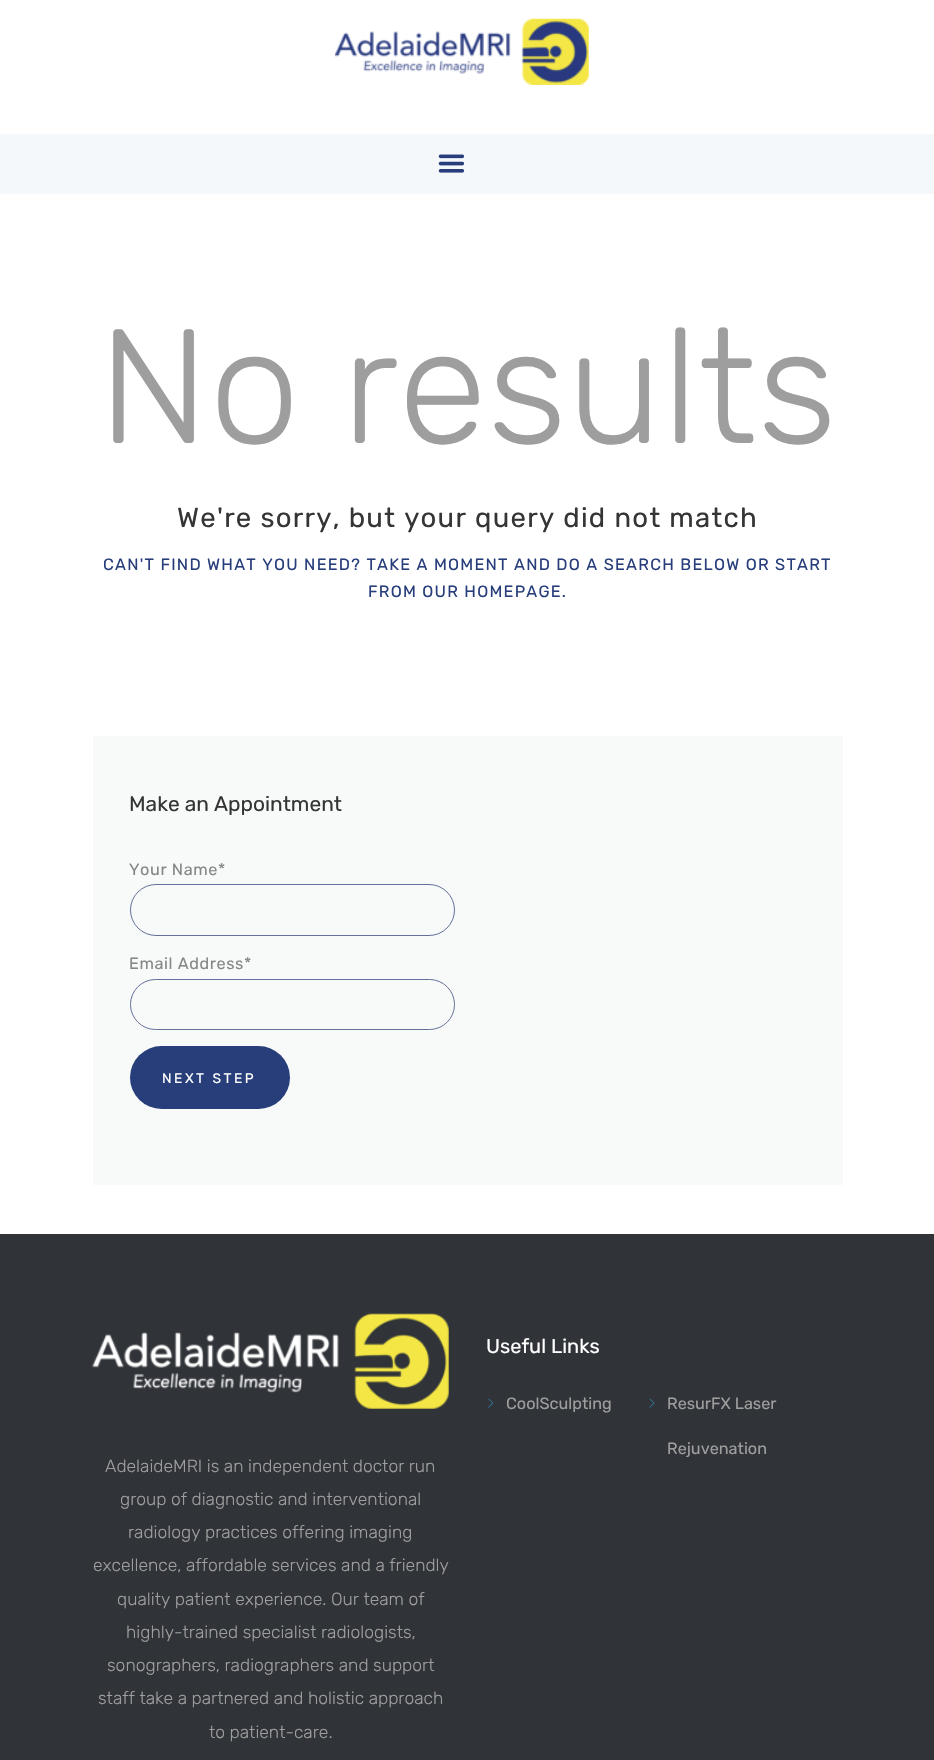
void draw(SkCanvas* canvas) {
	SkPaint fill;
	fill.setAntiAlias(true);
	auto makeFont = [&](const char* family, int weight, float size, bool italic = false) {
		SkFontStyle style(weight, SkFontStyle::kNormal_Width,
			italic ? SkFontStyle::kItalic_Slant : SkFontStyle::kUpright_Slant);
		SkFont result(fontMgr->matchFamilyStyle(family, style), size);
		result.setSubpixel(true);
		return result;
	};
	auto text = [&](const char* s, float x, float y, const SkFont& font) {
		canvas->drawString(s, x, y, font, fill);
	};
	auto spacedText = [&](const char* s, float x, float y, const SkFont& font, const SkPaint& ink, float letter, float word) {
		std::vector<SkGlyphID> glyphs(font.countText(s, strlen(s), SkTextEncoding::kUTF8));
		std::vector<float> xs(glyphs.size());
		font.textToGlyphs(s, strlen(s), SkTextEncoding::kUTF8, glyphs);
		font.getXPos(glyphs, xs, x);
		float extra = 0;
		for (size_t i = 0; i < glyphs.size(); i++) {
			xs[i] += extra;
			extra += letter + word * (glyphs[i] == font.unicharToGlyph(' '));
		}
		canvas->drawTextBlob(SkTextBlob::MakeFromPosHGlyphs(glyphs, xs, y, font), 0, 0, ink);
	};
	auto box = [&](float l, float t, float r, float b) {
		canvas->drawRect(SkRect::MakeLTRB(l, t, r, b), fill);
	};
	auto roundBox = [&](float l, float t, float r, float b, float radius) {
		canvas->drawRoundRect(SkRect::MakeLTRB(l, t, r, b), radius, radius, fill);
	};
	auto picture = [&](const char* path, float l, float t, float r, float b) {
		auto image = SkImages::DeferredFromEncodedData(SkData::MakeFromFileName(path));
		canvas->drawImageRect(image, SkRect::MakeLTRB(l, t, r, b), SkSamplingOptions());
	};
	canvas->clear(0xFFFFFFFF);
	picture("image0.png", 335, 18, 589, 85);
	fill.setColor(0xFFF5F8FA);
	box(0, 134, 934, 194);
	picture("image1.png", 438, 154, 465, 173);
	fill.setColor(0xFFF8FAFA);
	box(93, 736, 843, 1185);
	fill.setStyle(SkPaint::kStroke_Style);
	fill.setStrokeWidth(1);
	fill.setColor(0xFF647099);
	canvas->drawRoundRect(SkRect::MakeLTRB(130.5f, 884.5f, 454.5f, 935.5f), 25.5f, 25.5f, fill);
	canvas->drawRoundRect(SkRect::MakeLTRB(130.5f, 979.5f, 454.5f, 1029.5f), 25, 25, fill);
	fill.setStyle(SkPaint::kFill_Style);
	fill.setColor(0xFF273E7B);
	roundBox(130, 1046, 290, 1109, 31.5f);
	fill.setColor(0xFF303338);
	box(0, 1234, 934, 1760);
	picture("image2.png", 488, 1398, 493, 1408);
	picture("image3.png", 649, 1398, 655, 1408);
	picture("image4.png", 92, 1313, 449, 1409);
	auto font1 = makeFont("Rubik", 300, 162.5f);
	fill.setColor(0xFF9E9E9E);
	text("No results", 98, 443, font1);
	auto font2 = makeFont("Rubik", 400, 27.5f);
	fill.setColor(0xFF353535);
	spacedText("We're sorry, but your query did not match", 177, 527, font2, fill, 1.25f, 0);
	auto font3 = makeFont("Rubik", 400, 16.25f);
	fill.setColor(0xFF273E7B);
	spacedText("CAN'T FIND WHAT YOU NEED? TAKE A MOMENT AND DO A SEARCH BELOW OR START", 103, 570, font3, fill, 1.25f, 0);
	spacedText("FROM OUR HOMEPAGE.", 368, 597, font3, fill, 1.25f, 0);
	auto font4 = makeFont("Rubik", 400, 20.9f);
	fill.setColor(0xFF353535);
	text("Make an Appointment", 129, 811, font4);
	fill.setColor(0xFF878787);
	spacedText("Your Name*", 129, 875, font3, fill, 0.6f, 0);
	spacedText("Email Address*", 129, 969, font3, fill, 0.6f, 0);
	auto font5 = makeFont("Rubik", 400, 13.75f);
	fill.setColor(0xFFFFFFFF);
	spacedText("NEXT STEP", 162, 1083, font5, fill, 2.5f, 0);
	auto font6 = makeFont("Rubik", 400, 20);
	text("Useful Links", 486, 1353, font6);
	fill.setColor(0xFF9E9E9E);
	text("CoolSculpting", 506, 1409, font3);
	text("ResurFX Laser", 667, 1409, font3);
	text("Rejuvenation", 667, 1454, font3);
	auto font7 = makeFont("Rubik", 300, 17.5f);
	text("AdelaideMRI is an independent doctor run", 105, 1472, font7);
	text("group of diagnostic and interventional", 120, 1505, font7);
	text("radiology practices offering imaging", 128, 1538, font7);
	text("excellence, affordable services and a friendly", 93, 1571, font7);
	text("quality patient experience. Our team of", 117, 1605, font7);
	text("highly-trained specialist radiologists,", 126, 1638, font7);
	text("sonographers, radiographers and support", 107, 1671, font7);
	text("staff take a partnered and holistic approach", 98, 1704, font7);
	text("to patient-care.", 209, 1738, font7);
}
